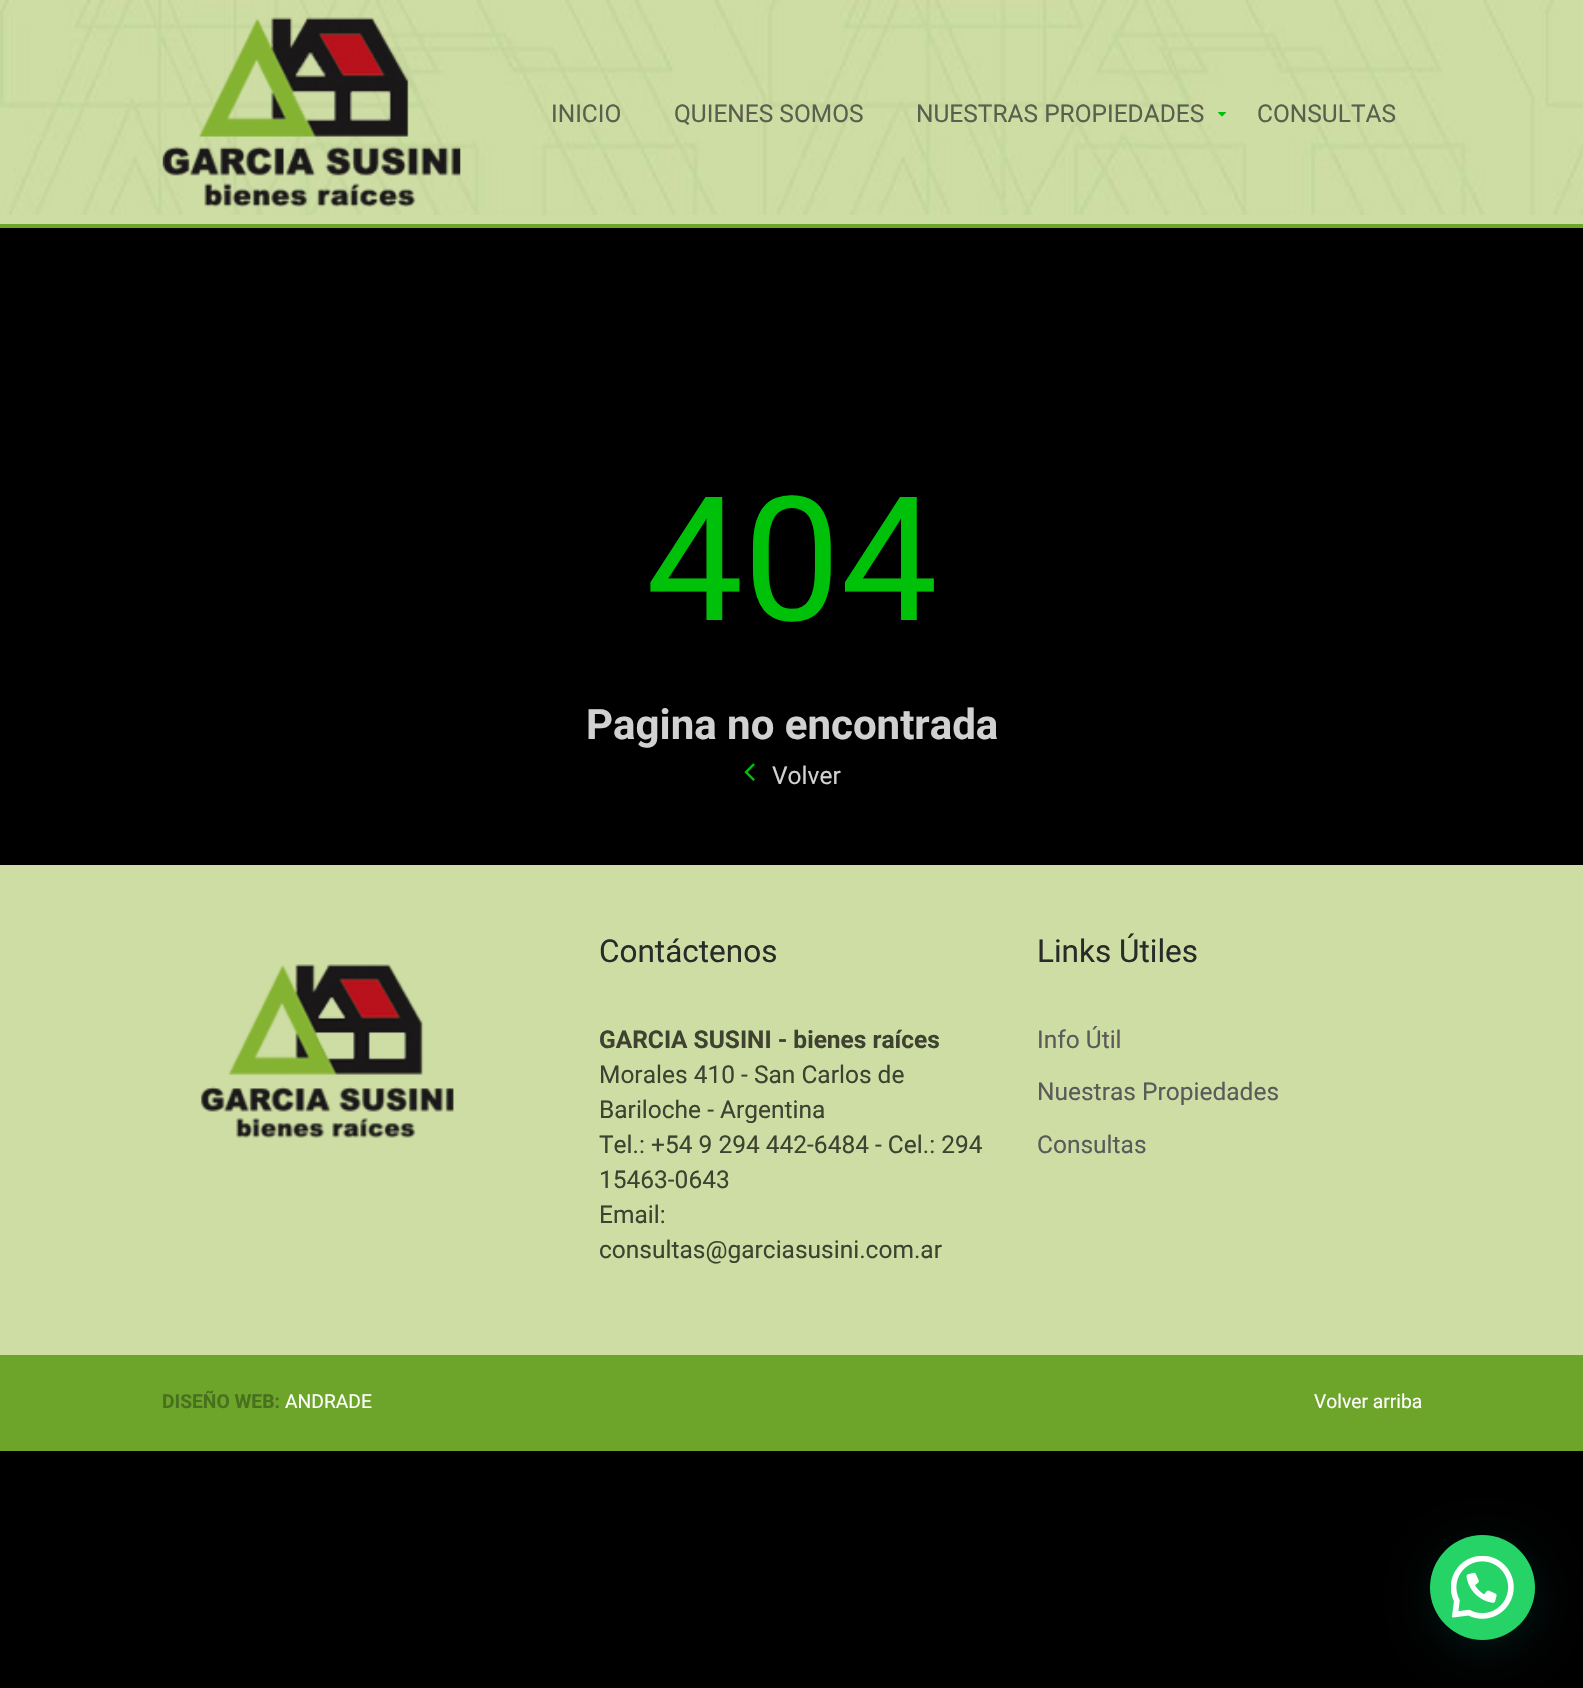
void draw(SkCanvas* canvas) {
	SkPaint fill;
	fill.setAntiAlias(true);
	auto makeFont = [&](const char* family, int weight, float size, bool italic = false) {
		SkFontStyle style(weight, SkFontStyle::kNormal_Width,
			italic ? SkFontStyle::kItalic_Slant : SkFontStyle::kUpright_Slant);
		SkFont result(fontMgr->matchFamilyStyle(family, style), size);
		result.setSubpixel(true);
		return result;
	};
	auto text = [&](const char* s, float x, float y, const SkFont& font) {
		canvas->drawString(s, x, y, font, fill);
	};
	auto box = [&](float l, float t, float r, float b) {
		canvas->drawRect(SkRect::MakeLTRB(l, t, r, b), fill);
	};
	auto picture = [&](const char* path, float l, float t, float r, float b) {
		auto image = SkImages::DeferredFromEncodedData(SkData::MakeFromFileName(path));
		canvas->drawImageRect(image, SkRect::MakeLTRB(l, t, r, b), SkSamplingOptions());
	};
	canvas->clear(0xFF000000);
	fill.setColor(0xFFCDDDA3);
	box(0, 215, 1583, 224);
	picture("image0.png", 0, 0, 1583, 215);
	fill.setColor(0xFF6DA52B);
	box(0, 224, 1583, 228);
	picture("image1.png", 162, 17, 461, 207);
	picture("image2.png", 1218, 112, 1226, 117);
	picture("image3.png", 744, 763, 755, 781);
	fill.setColor(0xFFCDDDA3);
	box(0, 865, 1583, 1355);
	picture("image4.png", 200, 964, 454, 1138);
	fill.setColor(0xFF6CA52A);
	box(0, 1355, 1583, 1451);
	fill.setColor(0x3D075E54);
	fill.setMaskFilter(SkMaskFilter::MakeBlur(kNormal_SkBlurStyle, 21));
	canvas->drawRoundRect(SkRect::MakeLTRB(1432, 1545, 1537, 1650), 52.5f, 52.5f, fill);
	fill.setMaskFilter(nullptr);
	fill.setColor(0xFF25D366);
	canvas->drawCircle(1482.5f, 1587.5f, 52.5f, fill);
	picture("image5.png", 1451, 1556, 1514, 1619);
	auto font1 = makeFont("Roboto", 400, 24.5f);
	fill.setColor(0xFF5B5F4E);
	text("INICIO", 551, 122, font1);
	text("QUIENES SOMOS", 674, 122, font1);
	text("NUESTRAS PROPIEDADES", 916, 122, font1);
	text("CONSULTAS", 1257, 122, font1);
	auto font2 = makeFont("Roboto", 400, 173);
	fill.setColor(0xFF00C109);
	text("404", 646, 620, font2);
	auto font3 = makeFont("Roboto", 700, 42);
	fill.setColor(0xFFD1D1D1);
	text("Pagina no encontrada", 586, 739, font3);
	text("Volver", 772, 784, font1);
	auto font4 = makeFont("Roboto", 400, 31.5f);
	fill.setColor(0xFF2A2A2A);
	text("Contáctenos", 599, 962, font4);
	auto font5 = makeFont("Roboto", 700, 24.5f);
	fill.setColor(0xFF3E4231);
	text("GARCIA SUSINI - bienes raíces", 599, 1048, font5);
	text("Morales 410 - San Carlos de", 599, 1083, font1);
	text("Bariloche - Argentina", 599, 1118, font1);
	text("Tel.: +54 9 294 442-6484 - Cel.: 294", 599, 1153, font1);
	text("15463-0643", 599, 1188, font1);
	text("Email:", 599, 1223, font1);
	text("consultas@garciasusini.com.ar", 599, 1258, font1);
	fill.setColor(0xFF2A2A2A);
	text("Links Útiles", 1037, 962, font4);
	fill.setColor(0xFF5A5A5A);
	text("Info Útil", 1037, 1048, font1);
	text("Nuestras Propiedades", 1037, 1100, font1);
	text("Consultas", 1037, 1153, font1);
	auto font6 = makeFont("Roboto", 700, 19.25f);
	fill.setColor(0xFF49701D);
	text("DISEÑO WEB:", 162, 1408, font6);
	auto font7 = makeFont("Roboto", 400, 19.25f);
	fill.setColor(0xFFFFFFFF);
	text("ANDRADE", 285, 1408, font7);
	text("Volver arriba", 1314, 1408, font7);
}
